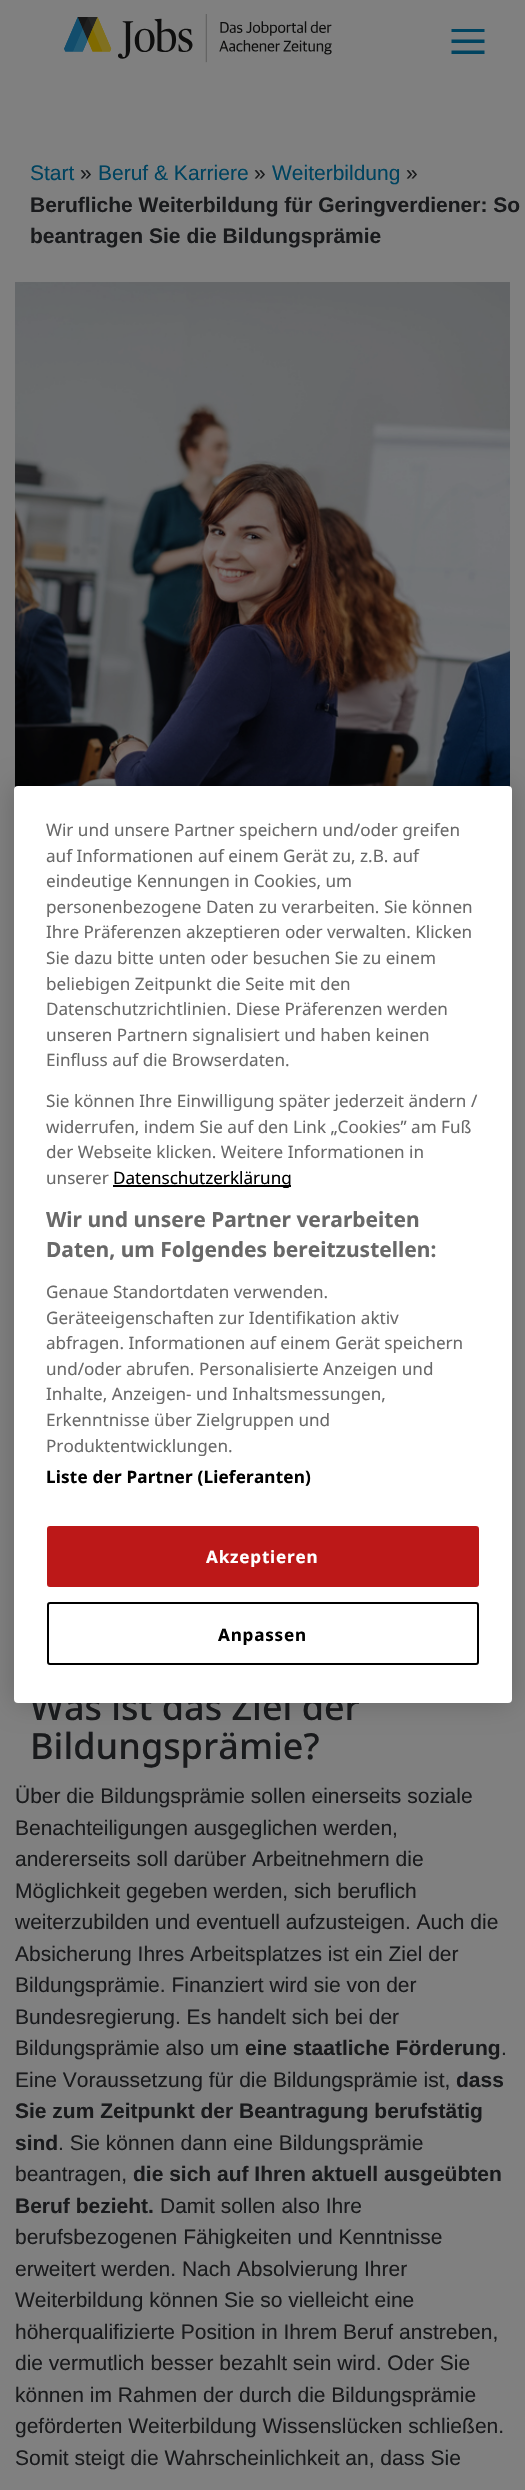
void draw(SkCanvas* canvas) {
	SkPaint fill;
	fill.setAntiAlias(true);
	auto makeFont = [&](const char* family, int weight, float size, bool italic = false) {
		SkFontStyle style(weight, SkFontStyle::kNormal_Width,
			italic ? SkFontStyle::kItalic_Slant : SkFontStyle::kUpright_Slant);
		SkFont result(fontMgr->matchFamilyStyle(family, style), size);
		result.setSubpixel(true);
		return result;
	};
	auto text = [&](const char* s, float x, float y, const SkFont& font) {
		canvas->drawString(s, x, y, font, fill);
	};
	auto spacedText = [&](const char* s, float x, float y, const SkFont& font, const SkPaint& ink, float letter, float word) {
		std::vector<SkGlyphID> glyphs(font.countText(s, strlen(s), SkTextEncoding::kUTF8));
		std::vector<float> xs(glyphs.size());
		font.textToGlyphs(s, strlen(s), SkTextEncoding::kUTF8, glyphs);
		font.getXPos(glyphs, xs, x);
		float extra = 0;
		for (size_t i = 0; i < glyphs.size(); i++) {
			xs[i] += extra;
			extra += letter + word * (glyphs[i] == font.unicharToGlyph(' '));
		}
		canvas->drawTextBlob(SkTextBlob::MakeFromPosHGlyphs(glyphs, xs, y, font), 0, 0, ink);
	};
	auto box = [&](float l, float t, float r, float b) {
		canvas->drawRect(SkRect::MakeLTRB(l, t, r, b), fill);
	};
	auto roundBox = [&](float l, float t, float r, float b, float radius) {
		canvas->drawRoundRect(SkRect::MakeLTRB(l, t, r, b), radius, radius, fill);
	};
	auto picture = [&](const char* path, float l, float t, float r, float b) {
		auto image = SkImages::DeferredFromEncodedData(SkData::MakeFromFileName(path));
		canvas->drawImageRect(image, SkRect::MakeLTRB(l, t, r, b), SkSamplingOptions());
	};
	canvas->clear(0xFF808080);
	picture("image0.png", 64, 14, 332, 63);
	canvas->save();
	canvas->clipRect(SkRect::MakeLTRB(449, 29, 488, 54));
	fill.setColor(0xFF00435F);
	canvas->drawPath(SkPathBuilder().moveTo(484.5f, 50.5f).lineTo(484.5f, 54).lineTo(451.5f, 54).lineTo(451.5f, 50.5f).close().moveTo(484.5f, 39.5f).lineTo(484.5f, 43).lineTo(451.5f, 43).lineTo(451.5f, 39.5f).close().moveTo(484.5f, 28.5f).lineTo(484.5f, 32).lineTo(451.5f, 32).lineTo(451.5f, 28.5f).close().detach(), fill);
	canvas->restore();
	picture("image1.png", 15, 282, 510, 788);
	fill.setColor(0x33000000);
	fill.setMaskFilter(SkMaskFilter::MakeBlur(kNormal_SkBlurStyle, 13.5f));
	canvas->drawRoundRect(SkRect::MakeLTRB(14, 786, 512, 1703), 4, 4, fill);
	fill.setMaskFilter(nullptr);
	auto font1 = makeFont("Liberation Sans", 400, 21);
	fill.setColor(0xFF00435F);
	text("Start", 30, 180, font1);
	fill.setColor(0xFF191A1C);
	text("»", 80, 180, font1);
	fill.setColor(0xFF00435F);
	text("Beruf & Karriere", 98, 180, font1);
	fill.setColor(0xFF191A1C);
	text("»", 254, 180, font1);
	fill.setColor(0xFF00435F);
	text("Weiterbildung", 272, 180, font1);
	fill.setColor(0xFF191A1C);
	text("»", 406, 180, font1);
	auto font2 = makeFont("Liberation Sans", 700, 21);
	text("Berufliche Weiterbildung für Geringverdiener: So", 30, 212, font2);
	text("beantragen Sie die Bildungsprämie", 30, 243, font2);
	auto font3 = makeFont("Noto Sans", 500, 36);
	text("Was ist das Ziel der", 30, 1720, font3);
	text("Bildungsprämie?", 30, 1759, font3);
	text("Über die Bildungsprämie sollen einerseits soziale", 15, 1803, font1);
	text("Benachteiligungen ausgeglichen werden,", 15, 1835, font1);
	text("andererseits soll darüber Arbeitnehmern die", 15, 1866, font1);
	text("Möglichkeit gegeben werden, sich beruflich", 15, 1898, font1);
	text("weiterzubilden und eventuell aufzusteigen. Auch die", 15, 1929, font1);
	text("Absicherung Ihres Arbeitsplatzes ist ein Ziel der", 15, 1961, font1);
	text("Bildungsprämie. Finanziert wird sie von der", 15, 1992, font1);
	text("Bundesregierung. Es handelt sich bei der", 15, 2024, font1);
	text("Bildungsprämie also um", 15, 2055, font1);
	text("eine staatliche Förderung", 245, 2055, font2);
	text(".", 501, 2055, font1);
	text("Eine Voraussetzung für die Bildungsprämie ist,", 15, 2087, font1);
	text("dass", 456, 2087, font2);
	text("Sie zum Zeitpunkt der Beantragung berufstätig", 15, 2118, font2);
	text("sind", 15, 2150, font2);
	text(". Sie können dann eine Bildungsprämie", 58, 2150, font1);
	text("beantragen,", 15, 2181, font1);
	text("die sich auf Ihren aktuell ausgeübten", 133, 2181, font2);
	text("Beruf bezieht.", 15, 2213, font2);
	text("Damit sollen also Ihre", 160, 2213, font1);
	text("berufsbezogenen Fähigkeiten und Kenntnisse", 15, 2244, font1);
	text("erweitert werden. Nach Absolvierung Ihrer", 15, 2276, font1);
	text("Weiterbildung können Sie so vielleicht eine", 15, 2307, font1);
	text("höherqualifizierte Position in Ihrem Beruf anstreben,", 15, 2339, font1);
	text("die vermutlich besser bezahlt sein wird. Oder Sie", 15, 2370, font1);
	text("können im Rahmen der durch die Bildungsprämie", 15, 2402, font1);
	text("geförderten Weiterbildung Wissenslücken schließen.", 15, 2433, font1);
	text("Somit steigt die Wahrscheinlichkeit an, dass Sie", 15, 2465, font1);
	fill.setColor(0xFFFFFFFF);
	roundBox(14, 786, 512, 1703, 4);
	auto font4 = makeFont("Noto Sans", 400, 17.1f);
	fill.setColor(0xFF696969);
	text("Wir und unsere Partner speichern und/oder greifen", 46, 836, font4);
	text("auf Informationen auf einem Gerät zu, z.B. auf", 46, 862, font4);
	text("eindeutige Kennungen in Cookies, um", 46, 887, font4);
	text("personenbezogene Daten zu verarbeiten. Sie können", 46, 913, font4);
	text("Ihre Präferenzen akzeptieren oder verwalten. Klicken", 46, 938, font4);
	text("Sie dazu bitte unten oder besuchen Sie zu einem", 46, 964, font4);
	text("beliebigen Zeitpunkt die Seite mit den", 46, 990, font4);
	text("Datenschutzrichtlinien. Diese Präferenzen werden", 46, 1015, font4);
	text("unseren Partnern signalisiert und haben keinen", 46, 1041, font4);
	text("Einfluss auf die Browserdaten.", 46, 1066, font4);
	text("Sie können Ihre Einwilligung später jederzeit ändern /", 46, 1107, font4);
	text("widerrufen, indem Sie auf den Link „Cookies” am Fuß", 46, 1133, font4);
	text("der Webseite klicken. Weitere Informationen in", 46, 1158, font4);
	text("unserer", 46, 1184, font4);
	fill.setColor(0xFF000000);
	box(113, 1185, 291, 1187);
	text("Datenschutzerklärung", 113, 1184, font4);
	auto font5 = makeFont("Noto Sans", 700, 21);
	fill.setColor(0xFF696969);
	text("Wir und unsere Partner verarbeiten", 46, 1227, font5);
	text("Daten, um Folgendes bereitzustellen:", 46, 1257, font5);
	text("Genaue Standortdaten verwenden.", 46, 1298, font4);
	text("Geräteeigenschaften zur Identifikation aktiv", 46, 1324, font4);
	text("abfragen. Informationen auf einem Gerät speichern", 46, 1349, font4);
	text("und/oder abrufen. Personalisierte Anzeigen und", 46, 1375, font4);
	text("Inhalte, Anzeigen- und Inhaltsmessungen,", 46, 1400, font4);
	text("Erkenntnisse über Zielgruppen und", 46, 1426, font4);
	text("Produktentwicklungen.", 46, 1452, font4);
	auto font6 = makeFont("Noto Sans", 700, 17.1f);
	fill.setColor(0xFF000000);
	spacedText("Liste der Partner (Lieferanten)", 46, 1483, font6, fill, 0.2f, 0);
	fill.setColor(0xFFBC1818);
	canvas->drawRoundRect(SkRect::MakeLTRB(48, 1527, 478, 1586), 2, 2, fill);
	fill.setStyle(SkPaint::kStroke_Style);
	fill.setStrokeWidth(2);
	canvas->drawRoundRect(SkRect::MakeLTRB(48, 1527, 478, 1586), 2, 2, fill);
	fill.setStyle(SkPaint::kFill_Style);
	fill.setColor(0xFFFFFFFF);
	spacedText("Akzeptieren", 206, 1563, font6, fill, 0.8f, 0);
	fill.setStyle(SkPaint::kStroke_Style);
	fill.setColor(0xFF000000);
	canvas->drawRoundRect(SkRect::MakeLTRB(48, 1603, 478, 1664), 2, 2, fill);
	fill.setStyle(SkPaint::kFill_Style);
	spacedText("Anpassen", 218, 1641, font6, fill, 0.8f, 0);
}
